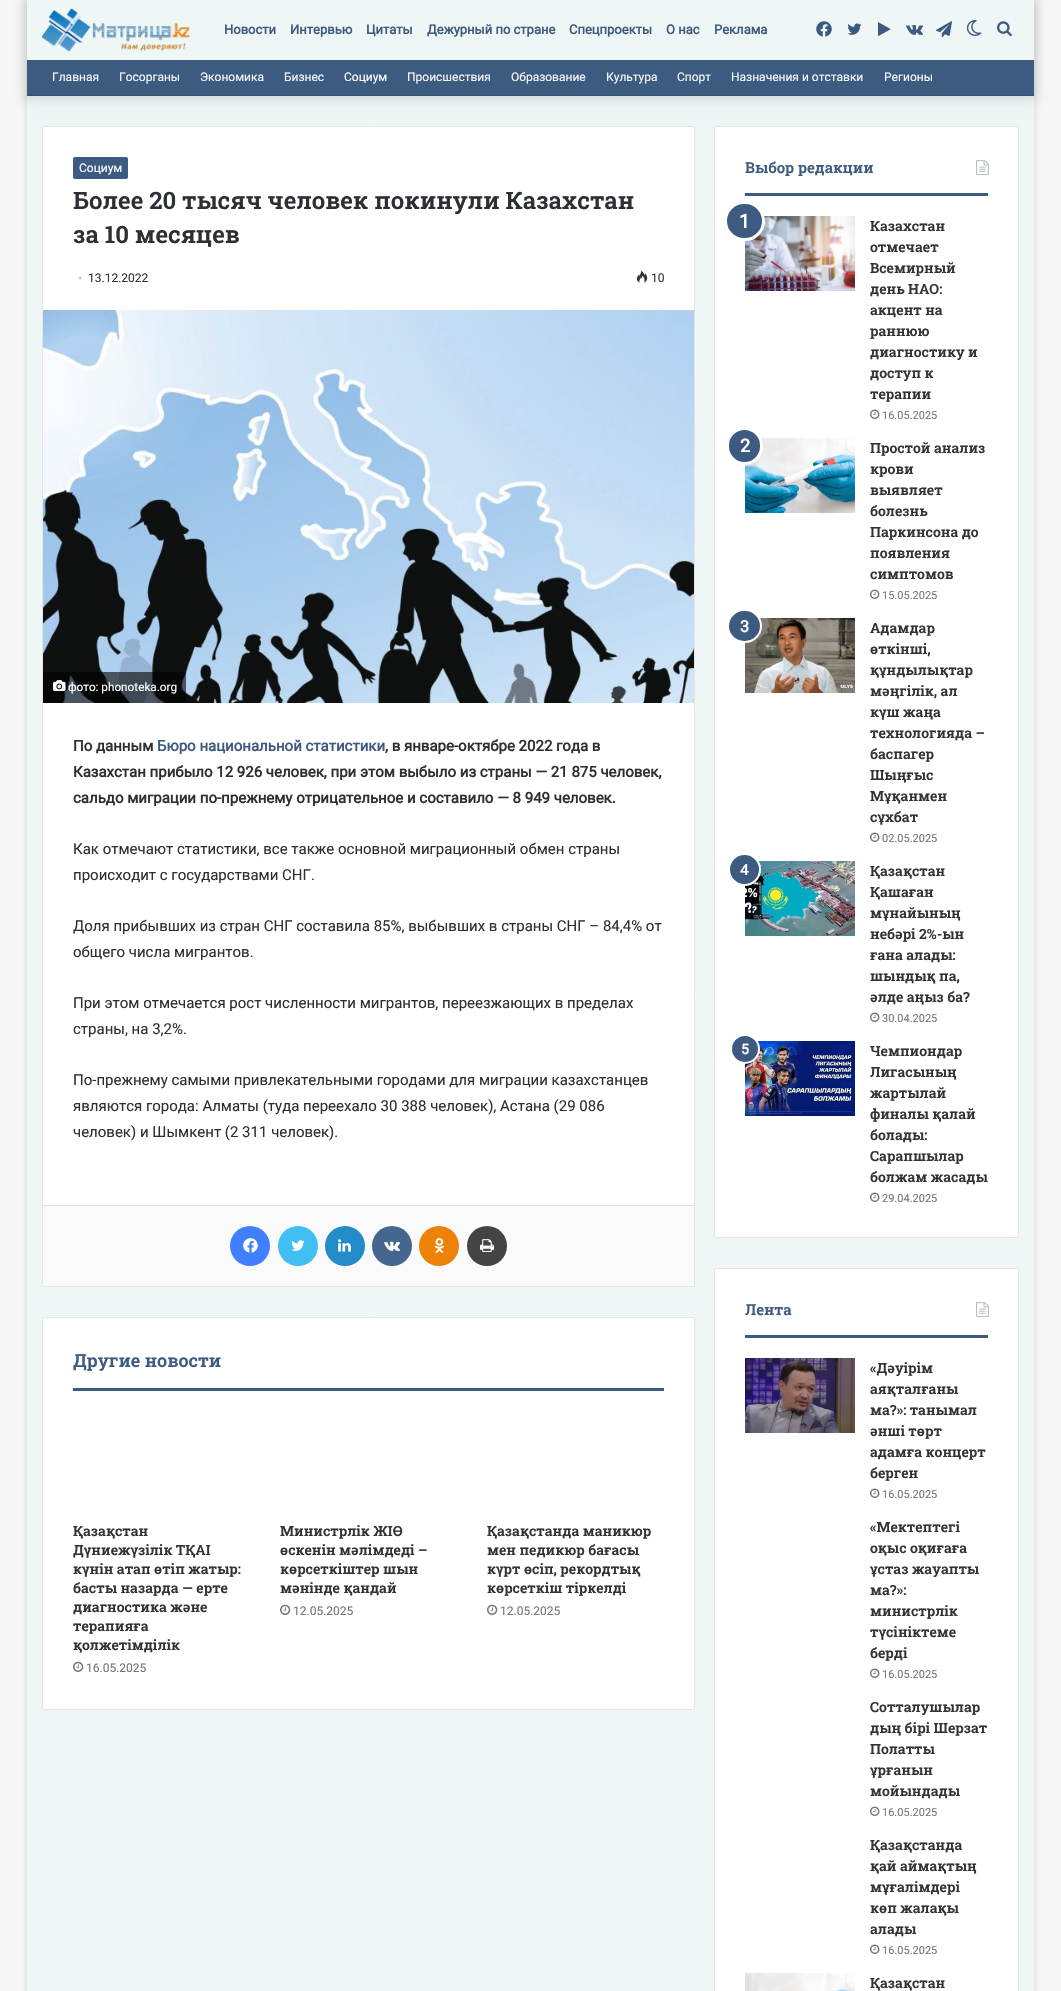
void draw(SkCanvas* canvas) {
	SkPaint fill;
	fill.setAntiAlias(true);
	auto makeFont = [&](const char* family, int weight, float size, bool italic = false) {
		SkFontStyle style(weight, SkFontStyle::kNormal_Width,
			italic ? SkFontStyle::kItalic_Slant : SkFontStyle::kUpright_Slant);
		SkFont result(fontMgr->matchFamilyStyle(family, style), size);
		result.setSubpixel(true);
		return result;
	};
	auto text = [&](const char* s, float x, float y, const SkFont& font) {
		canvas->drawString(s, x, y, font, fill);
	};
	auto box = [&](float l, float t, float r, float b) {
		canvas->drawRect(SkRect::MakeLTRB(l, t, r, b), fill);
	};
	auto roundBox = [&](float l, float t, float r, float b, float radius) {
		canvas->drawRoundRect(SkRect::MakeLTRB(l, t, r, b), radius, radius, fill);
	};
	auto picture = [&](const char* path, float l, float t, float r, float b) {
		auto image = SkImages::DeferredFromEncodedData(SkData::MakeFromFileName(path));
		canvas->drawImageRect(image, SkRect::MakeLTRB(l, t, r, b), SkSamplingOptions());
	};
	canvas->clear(0xFFF7F7F7);
	fill.setColor(0x80ABABAB);
	fill.setMaskFilter(SkMaskFilter::MakeBlur(kNormal_SkBlurStyle, 3.5f));
	canvas->drawRect(SkRect::MakeLTRB(27, 1, 1034, 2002), fill);
	fill.setMaskFilter(nullptr);
	fill.setColor(0xFFEFF7F6);
	box(27, 96, 1034, 1991);
	fill.setColor(0x1A000000);
	fill.setMaskFilter(SkMaskFilter::MakeBlur(kNormal_SkBlurStyle, 5));
	canvas->drawRect(SkRect::MakeLTRB(22, -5, 1039, 101), fill);
	fill.setMaskFilter(nullptr);
	fill.setColor(0xFFEFF7F6);
	box(27, 0, 1034, 60);
	picture("image0.png", 42, 8, 190, 52);
	picture("image1.png", 816, 21, 832, 37);
	picture("image2.png", 847, 23, 862, 35);
	picture("image3.png", 878, 22, 891, 36);
	picture("image4.png", 906, 25, 924, 35);
	picture("image5.png", 936, 21, 952, 38);
	picture("image6.png", 966, 20, 982, 36);
	picture("image7.png", 997, 21, 1012, 37);
	fill.setColor(0xFF3D5A80);
	box(27, 60, 1034, 95);
	fill.setColor(0xFF375173);
	box(27, 95, 1034, 96);
	fill.setColor(0xFFFFFFFF);
	canvas->drawRoundRect(SkRect::MakeLTRB(42.5f, 126.5f, 694.5f, 1286.5f), 1.5f, 1.5f, fill);
	fill.setStyle(SkPaint::kStroke_Style);
	fill.setStrokeWidth(1);
	fill.setColor(0xFFE5E5E5);
	canvas->drawRoundRect(SkRect::MakeLTRB(42.5f, 126.5f, 694.5f, 1286.5f), 1.5f, 1.5f, fill);
	fill.setStyle(SkPaint::kFill_Style);
	fill.setColor(0xFF3D5A80);
	roundBox(73, 157, 128, 179, 2);
	picture("image8.png", 636, 270, 648, 283);
	picture("image9.png", 43, 310, 694, 703);
	fill.setColor(0x99000000);
	box(43, 672, 186, 703);
	picture("image10.png", 53, 680, 66, 691);
	fill.setColor(0xFFFAFAFA);
	box(43, 1206, 694, 1286);
	fill.setColor(0xFFE1E1E1);
	box(43, 1205, 694, 1206);
	fill.setColor(0xFF4080FF);
	canvas->drawCircle(250, 1246, 20, fill);
	picture("image11.png", 243, 1238, 258, 1253);
	fill.setColor(0xFF40BFF5);
	canvas->drawCircle(298, 1246, 20, fill);
	picture("image12.png", 291, 1240, 305, 1251);
	fill.setColor(0xFF238CC8);
	canvas->drawCircle(345, 1246, 20, fill);
	picture("image13.png", 338, 1239, 351, 1252);
	fill.setColor(0xFF45668E);
	canvas->drawCircle(392, 1246, 20, fill);
	picture("image14.png", 384, 1241, 400, 1251);
	fill.setColor(0xFFEE8208);
	canvas->drawCircle(439, 1246, 20, fill);
	picture("image15.png", 434, 1238, 444, 1253);
	fill.setColor(0xFF444444);
	canvas->drawCircle(487, 1246, 20, fill);
	picture("image16.png", 480, 1239, 494, 1252);
	fill.setColor(0xFFFFFFFF);
	canvas->drawRoundRect(SkRect::MakeLTRB(42.5f, 1317.5f, 694.5f, 1709.5f), 1.5f, 1.5f, fill);
	fill.setStyle(SkPaint::kStroke_Style);
	fill.setColor(0xFFE5E5E5);
	canvas->drawRoundRect(SkRect::MakeLTRB(42.5f, 1317.5f, 694.5f, 1709.5f), 1.5f, 1.5f, fill);
	fill.setStyle(SkPaint::kFill_Style);
	fill.setColor(0xFF3D5A80);
	box(73, 1388, 664, 1391);
	picture("image17.png", 73, 1661, 84, 1672);
	picture("image17.png", 280, 1604, 291, 1615);
	picture("image17.png", 487, 1604, 498, 1615);
	fill.setColor(0xFFFFFFFF);
	canvas->drawRoundRect(SkRect::MakeLTRB(714.5f, 126.5f, 1018.5f, 1237.5f), 1.5f, 1.5f, fill);
	fill.setStyle(SkPaint::kStroke_Style);
	fill.setColor(0xFFE5E5E5);
	canvas->drawRoundRect(SkRect::MakeLTRB(714.5f, 126.5f, 1018.5f, 1237.5f), 1.5f, 1.5f, fill);
	fill.setStyle(SkPaint::kFill_Style);
	fill.setColor(0xFF3D5A80);
	box(745, 193, 988, 196);
	picture("image18.png", 976, 160, 989, 176);
	picture("image19.png", 745, 216, 855, 291);
	canvas->drawRoundRect(SkRect::MakeLTRB(725.5f, 202.5f, 763.5f, 239.5f), 18.5f, 18.5f, fill);
	fill.setStyle(SkPaint::kStroke_Style);
	fill.setStrokeWidth(3);
	fill.setColor(0xFFFFFFFF);
	canvas->drawRoundRect(SkRect::MakeLTRB(725.5f, 202.5f, 763.5f, 239.5f), 18.5f, 18.5f, fill);
	picture("image20.png", 870, 409, 880, 419);
	picture("image21.png", 745, 438, 855, 513);
	fill.setStyle(SkPaint::kFill_Style);
	fill.setColor(0xFF3D5A80);
	canvas->drawRoundRect(SkRect::MakeLTRB(727.5f, 428.5f, 761.5f, 463.5f), 17, 17, fill);
	fill.setStyle(SkPaint::kStroke_Style);
	fill.setColor(0xFFFFFFFF);
	canvas->drawRoundRect(SkRect::MakeLTRB(727.5f, 428.5f, 761.5f, 463.5f), 17, 17, fill);
	picture("image20.png", 870, 589, 880, 599);
	picture("image22.png", 745, 618, 855, 693);
	fill.setStyle(SkPaint::kFill_Style);
	fill.setColor(0xFF3D5A80);
	canvas->drawRoundRect(SkRect::MakeLTRB(728, 610, 761, 642), 16, 16, fill);
	fill.setStyle(SkPaint::kStroke_Style);
	fill.setStrokeWidth(2);
	fill.setColor(0xFFFFFFFF);
	canvas->drawRoundRect(SkRect::MakeLTRB(728, 610, 761, 642), 16, 16, fill);
	picture("image20.png", 870, 832, 880, 842);
	picture("image23.png", 745, 861, 855, 936);
	fill.setStyle(SkPaint::kFill_Style);
	fill.setColor(0xFF3D5A80);
	canvas->drawCircle(744.5f, 869.5f, 15.5f, fill);
	fill.setStyle(SkPaint::kStroke_Style);
	fill.setColor(0xFFFFFFFF);
	canvas->drawCircle(744.5f, 869.5f, 15.5f, fill);
	picture("image20.png", 870, 1012, 880, 1022);
	picture("image24.png", 745, 1041, 855, 1116);
	fill.setStyle(SkPaint::kFill_Style);
	fill.setColor(0xFF3D5A80);
	canvas->drawCircle(745, 1049, 14, fill);
	fill.setStyle(SkPaint::kStroke_Style);
	fill.setColor(0xFFFFFFFF);
	canvas->drawCircle(745, 1049, 14, fill);
	picture("image20.png", 870, 1192, 880, 1202);
	fill.setStyle(SkPaint::kFill_Style);
	canvas->drawRoundRect(SkRect::MakeLTRB(714.5f, 1268.5f, 1018.5f, 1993.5f), 1.5f, 1.5f, fill);
	fill.setStyle(SkPaint::kStroke_Style);
	fill.setStrokeWidth(1);
	fill.setColor(0xFFE5E5E5);
	canvas->drawRoundRect(SkRect::MakeLTRB(714.5f, 1268.5f, 1018.5f, 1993.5f), 1.5f, 1.5f, fill);
	fill.setStyle(SkPaint::kFill_Style);
	fill.setColor(0xFF3D5A80);
	box(745, 1335, 988, 1338);
	picture("image18.png", 976, 1302, 989, 1318);
	picture("image25.png", 745, 1358, 855, 1433);
	picture("image20.png", 870, 1488, 880, 1498);
	picture("image20.png", 870, 1668, 880, 1678);
	picture("image20.png", 870, 1806, 880, 1816);
	picture("image20.png", 870, 1944, 880, 1954);
	picture("image26.png", 745, 1973, 855, 1991);
	auto font1 = makeFont("Roboto", 700, 13);
	text("Новости", 224, 34, font1);
	text("Интервью", 290, 34, font1);
	text("Цитаты", 366, 34, font1);
	text("Дежурный по стране", 427, 34, font1);
	text("Спецпроекты", 569, 34, font1);
	text("О нас", 666, 34, font1);
	text("Реклама", 714, 34, font1);
	auto font2 = makeFont("Roboto", 400, 12);
	fill.setColor(0xFFF6F7F9);
	text("Главная", 52, 81, font2);
	text("Госорганы", 119, 81, font2);
	text("Экономика", 200, 81, font2);
	text("Бизнес", 284, 81, font2);
	fill.setColor(0xFFFFFFFF);
	text("Социум", 344, 81, font2);
	fill.setColor(0xFFF6F7F9);
	text("Происшествия", 407, 81, font2);
	text("Образование", 511, 81, font2);
	text("Культура", 606, 81, font2);
	text("Спорт", 677, 81, font2);
	text("Назначения и отставки", 731, 81, font2);
	text("Регионы", 884, 81, font2);
	fill.setColor(0xFFFFFFFF);
	text("Социум", 79, 172, font2);
	auto font3 = makeFont("Roboto Slab", 600, 24);
	fill.setColor(0xFF2C2F34);
	text("Более 20 тысяч человек покинули Казахстан", 73, 209, font3);
	text("за 10 месяцев", 73, 243, font3);
	auto font4 = makeFont("Liberation Serif", 400, 12);
	fill.setColor(0xFFCCCCCC);
	text("•", 78, 282, font4);
	fill.setColor(0xFF333333);
	text("13.12.2022", 88, 282, font2);
	text("10", 651, 282, font2);
	auto font5 = makeFont("Roboto", 400, 11.75f);
	fill.setColor(0xFFFFFFFF);
	text("фото: phonoteka.org", 68, 691, font5);
	auto font6 = makeFont("Roboto", 700, 15);
	fill.setColor(0xFF2C2F34);
	text("По данным", 73, 751, font6);
	fill.setColor(0xFF3D5A80);
	text("Бюро национальной статистики", 157, 751, font6);
	fill.setColor(0xFF2C2F34);
	text(", в январе-октябре 2022 года в", 385, 751, font6);
	text("Казахстан прибыло 12 926 человек, при этом выбыло из страны — 21 875 человек,", 73, 777, font6);
	text("сальдо миграции по-прежнему отрицательное и составило — 8 949 человек.", 73, 803, font6);
	auto font7 = makeFont("Roboto", 400, 15);
	text("Как отмечают статистики, все также основной миграционный обмен страны", 73, 854, font7);
	text("происходит с государствами СНГ.", 73, 880, font7);
	text("Доля прибывших из стран СНГ составила 85%, выбывших в страны СНГ – 84,4% от", 73, 931, font7);
	text("общего числа мигрантов.", 73, 957, font7);
	text("При этом отмечается рост численности мигрантов, переезжающих в пределах", 73, 1008, font7);
	text("страны, на 3,2%.", 73, 1034, font7);
	text("По-прежнему самыми привлекательными городами для миграции казахстанцев", 73, 1085, font7);
	text("являются города: Алматы (туда переехало 30 388 человек), Астана (29 086", 73, 1111, font7);
	text("человек) и Шымкент (2 311 человек).", 73, 1137, font7);
	auto font8 = makeFont("Roboto Slab", 600, 18);
	fill.setColor(0xFF3D5A80);
	text("Другие новости", 73, 1367, font8);
	auto font9 = makeFont("Roboto Slab", 600, 14);
	fill.setColor(0xFF333333);
	text("Қазақстан", 73, 1536, font9);
	text("Дүниежүзілік ТҚАІ", 73, 1555, font9);
	text("күнін атап өтіп жатыр:", 73, 1574, font9);
	text("басты назарда — ерте", 73, 1593, font9);
	text("диагностика және", 73, 1612, font9);
	text("терапияға", 73, 1631, font9);
	text("қолжетімділік", 73, 1650, font9);
	fill.setColor(0xFF767676);
	text("16.05.2025", 86, 1672, font2);
	fill.setColor(0xFF333333);
	text("Министрлік ЖІӨ", 280, 1536, font9);
	text("өскенін мәлімдеді –", 280, 1555, font9);
	text("көрсеткіштер шын", 280, 1574, font9);
	text("мәнінде қандай", 280, 1593, font9);
	fill.setColor(0xFF767676);
	text("12.05.2025", 293, 1615, font2);
	fill.setColor(0xFF333333);
	text("Қазақстанда маникюр", 487, 1536, font9);
	text("мен педикюр бағасы", 487, 1555, font9);
	text("күрт өсіп, рекордтық", 487, 1574, font9);
	text("көрсеткіш тіркелді", 487, 1593, font9);
	fill.setColor(0xFF767676);
	text("12.05.2025", 500, 1615, font2);
	auto font10 = makeFont("Roboto Slab", 600, 15);
	fill.setColor(0xFF3D5A80);
	text("Выбор редакции", 745, 173, font10);
	auto font11 = makeFont("Roboto", 700, 19);
	fill.setColor(0xFFFFFFFF);
	text("1", 739, 228, font11);
	fill.setColor(0xFF333333);
	text("Казахстан", 870, 231, font9);
	text("отмечает", 870, 252, font9);
	text("Всемирный", 870, 273, font9);
	text("день НАО:", 870, 294, font9);
	text("акцент на", 870, 315, font9);
	text("раннюю", 870, 336, font9);
	text("диагностику и", 870, 357, font9);
	text("доступ к", 870, 378, font9);
	text("терапии", 870, 399, font9);
	auto font12 = makeFont("Roboto", 400, 11);
	fill.setColor(0xFF767676);
	text("16.05.2025", 882, 419, font12);
	auto font13 = makeFont("Roboto", 700, 18);
	fill.setColor(0xFFFFFFFF);
	text("2", 740, 452, font13);
	fill.setColor(0xFF333333);
	text("Простой анализ", 870, 453, font9);
	text("крови", 870, 474, font9);
	text("выявляет", 870, 495, font9);
	text("болезнь", 870, 516, font9);
	text("Паркинсона до", 870, 537, font9);
	text("появления", 870, 558, font9);
	text("симптомов", 870, 579, font9);
	fill.setColor(0xFF767676);
	text("15.05.2025", 882, 599, font12);
	auto font14 = makeFont("Roboto", 700, 16);
	fill.setColor(0xFFFFFFFF);
	text("3", 740, 632, font14);
	fill.setColor(0xFF333333);
	text("Адамдар", 870, 633, font9);
	text("өткінші,", 870, 654, font9);
	text("құндылықтар", 870, 675, font9);
	text("мәңгілік, ал", 870, 696, font9);
	text("күш жаңа", 870, 717, font9);
	text("технологияда –", 870, 738, font9);
	text("баспагер", 870, 759, font9);
	text("Шыңғыс", 870, 780, font9);
	text("Мұқанмен", 870, 801, font9);
	text("сұхбат", 870, 822, font9);
	fill.setColor(0xFF767676);
	text("02.05.2025", 882, 842, font12);
	fill.setColor(0xFFFFFFFF);
	text("4", 740, 875, font6);
	fill.setColor(0xFF333333);
	text("Қазақстан", 870, 876, font9);
	text("Қашаған", 870, 897, font9);
	text("мұнайының", 870, 918, font9);
	text("небәрі 2%-ын", 870, 939, font9);
	text("ғана алады:", 870, 960, font9);
	text("шындық па,", 870, 981, font9);
	text("әлде аңыз ба?", 870, 1002, font9);
	fill.setColor(0xFF767676);
	text("30.04.2025", 882, 1022, font12);
	auto font15 = makeFont("Roboto", 700, 14);
	fill.setColor(0xFFFFFFFF);
	text("5", 741, 1054, font15);
	fill.setColor(0xFF333333);
	text("Чемпиондар", 870, 1056, font9);
	text("Лигасының", 870, 1077, font9);
	text("жартылай", 870, 1098, font9);
	text("финалы қалай", 870, 1119, font9);
	text("болады:", 870, 1140, font9);
	text("Сарапшылар", 870, 1161, font9);
	text("болжам жасады", 870, 1182, font9);
	fill.setColor(0xFF767676);
	text("29.04.2025", 882, 1202, font12);
	fill.setColor(0xFF3D5A80);
	text("Лента", 745, 1315, font10);
	fill.setColor(0xFF333333);
	text("«Дәуірім", 870, 1373, font9);
	text("аяқталғаны", 870, 1394, font9);
	text("ма?»: танымал", 870, 1415, font9);
	text("әнші төрт", 870, 1436, font9);
	text("адамға концерт", 870, 1457, font9);
	text("берген", 870, 1478, font9);
	fill.setColor(0xFF767676);
	text("16.05.2025", 882, 1498, font12);
	fill.setColor(0xFF333333);
	text("«Мектептегі", 870, 1532, font9);
	text("оқыс оқиғаға", 870, 1553, font9);
	text("ұстаз жауапты", 870, 1574, font9);
	text("ма?»:", 870, 1595, font9);
	text("министрлік", 870, 1616, font9);
	text("түсініктеме", 870, 1637, font9);
	text("берді", 870, 1658, font9);
	fill.setColor(0xFF767676);
	text("16.05.2025", 882, 1678, font12);
	fill.setColor(0xFF333333);
	text("Сотталушылар", 870, 1712, font9);
	text("дың бірі Шерзат", 870, 1733, font9);
	text("Полатты", 870, 1754, font9);
	text("ұрғанын", 870, 1775, font9);
	text("мойындады", 870, 1796, font9);
	fill.setColor(0xFF767676);
	text("16.05.2025", 882, 1816, font12);
	fill.setColor(0xFF333333);
	text("Қазақстанда", 870, 1850, font9);
	text("қай аймақтың", 870, 1871, font9);
	text("мұғалімдері", 870, 1892, font9);
	text("көп жалақы", 870, 1913, font9);
	text("алады", 870, 1934, font9);
	fill.setColor(0xFF767676);
	text("16.05.2025", 882, 1954, font12);
	fill.setColor(0xFF333333);
	text("Қазақстан", 870, 1988, font9);
}
